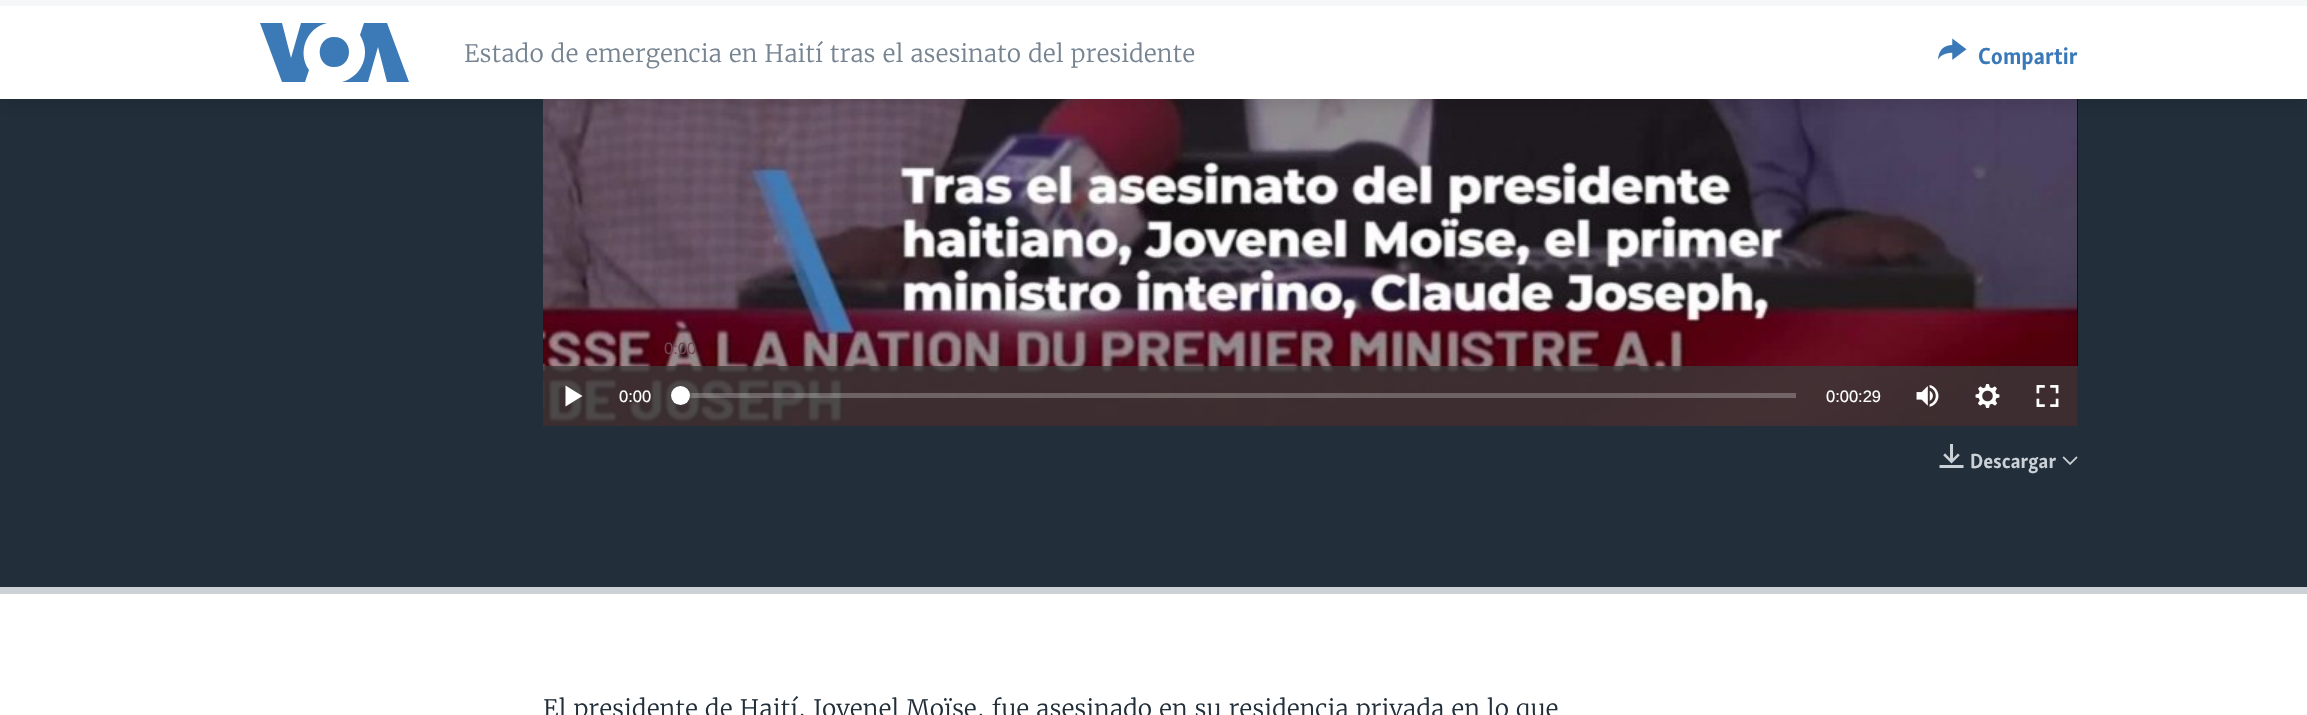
void draw(SkCanvas* canvas) {
	SkPaint fill;
	fill.setAntiAlias(true);
	auto makeFont = [&](const char* family, int weight, float size, bool italic = false) {
		SkFontStyle style(weight, SkFontStyle::kNormal_Width,
			italic ? SkFontStyle::kItalic_Slant : SkFontStyle::kUpright_Slant);
		SkFont result(fontMgr->matchFamilyStyle(family, style), size);
		result.setSubpixel(true);
		return result;
	};
	auto text = [&](const char* s, float x, float y, const SkFont& font) {
		canvas->drawString(s, x, y, font, fill);
	};
	auto box = [&](float l, float t, float r, float b) {
		canvas->drawRect(SkRect::MakeLTRB(l, t, r, b), fill);
	};
	auto picture = [&](const char* path, float l, float t, float r, float b) {
		auto image = SkImages::DeferredFromEncodedData(SkData::MakeFromFileName(path));
		canvas->drawImageRect(image, SkRect::MakeLTRB(l, t, r, b), SkSamplingOptions());
	};
	canvas->clear(0xFFFFFFFF);
	fill.setColor(0xFF222F3A);
	box(0, 99, 2307, 587);
	fill.setColor(0xFF000000);
	box(2077, 99, 2078, 426);
	picture("image1.png", 543, 99, 2078, 426);
	fill.setColor(0x1A000000);
	fill.setMaskFilter(SkMaskFilter::MakeBlur(kNormal_SkBlurStyle, 7.5f));
	canvas->drawRect(SkRect::MakeLTRB(0, 8, 2307, 107), fill);
	fill.setMaskFilter(nullptr);
	fill.setColor(0xFFFFFFFF);
	box(0, 6, 2307, 99);
	fill.setColor(0xFFF6F7F8);
	box(0, 0, 2307, 6);
	fill.setColor(0xFF3B79B7);
	canvas->drawPath(SkPathBuilder().moveTo(309, 70).lineTo(305, 82).lineTo(282, 82).lineTo(260, 23).lineTo(282, 23).lineTo(291, 58).lineTo(301, 23).lineTo(327, 23).cubicTo(306, 28, 297, 53, 309, 70).close().moveTo(334, 37).cubicTo(315, 37, 315, 67, 334, 67).cubicTo(354, 67, 354, 37, 334, 37).close().moveTo(365, 52).cubicTo(365, 66, 356, 78, 342, 82).lineTo(368, 82).lineTo(378, 47).lineTo(387, 82).lineTo(409, 82).lineTo(387, 23).lineTo(364, 23).lineTo(360, 35).cubicTo(363, 40, 365, 46, 365, 52).close().detach(), fill);
	picture("image0.png", 1938, 38, 1967, 60);
	fill.setColor(0xFFCBD1D6);
	box(0, 587, 2307, 594);
	fill.setColor(0xCC383838);
	box(543, 366, 2078, 426);
	fill.setColor(0xFFFFFFFF);
	canvas->drawPath(SkPathBuilder().moveTo(565.5f, 406.5f).lineTo(582.5f, 396).lineTo(565.5f, 385.5f).close().detach(), fill);
	fill.setColor(0x40FFFFFF);
	box(689, 393, 1796, 398);
	fill.setColor(0xFF414144);
	fill.setMaskFilter(SkMaskFilter::MakeBlur(kNormal_SkBlurStyle, 2));
	canvas->drawRoundRect(SkRect::MakeLTRB(671, 386, 690, 405), 9.5f, 9.5f, fill);
	fill.setMaskFilter(nullptr);
	fill.setColor(0xFFFFFFFF);
	canvas->drawCircle(680.5f, 395.5f, 9.5f, fill);
	picture("image2.png", 1916, 385, 1939, 407);
	picture("image3.png", 1975, 384, 2000, 408);
	picture("image4.png", 2036, 385, 2059, 407);
	picture("image5.png", 1939, 444, 1964, 468);
	picture("image6.png", 2062, 456, 2078, 465);
	auto font1 = makeFont("Merriweather", 300, 24);
	fill.setColor(0xFF768492);
	text("Estado de emergencia en Haití tras el asesinato del presidente", 464, 62, font1);
	auto font2 = makeFont("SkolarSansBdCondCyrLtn", 700, 24);
	fill.setColor(0xFF3A79B7);
	text("Compartir", 1978, 64, font2);
	auto font3 = makeFont("Liberation Sans", 400, 16.5f);
	fill.setColor(0xFF6F4851);
	text("0:00", 664, 354, font3);
	fill.setColor(0xFFFFFFFF);
	text("0:00", 619, 402, font3);
	text("0:00:29", 1826, 402, font3);
	auto font4 = makeFont("SkolarSansBdCondCyrLtn", 700, 21);
	fill.setColor(0xFFCBD1D6);
	text("Descargar", 1970, 468, font4);
	fill.setColor(0xFF222F3A);
	text("El presidente de Haití, Jovenel Moïse, fue asesinado en su residencia privada en lo que", 543, 717, font1);
}
